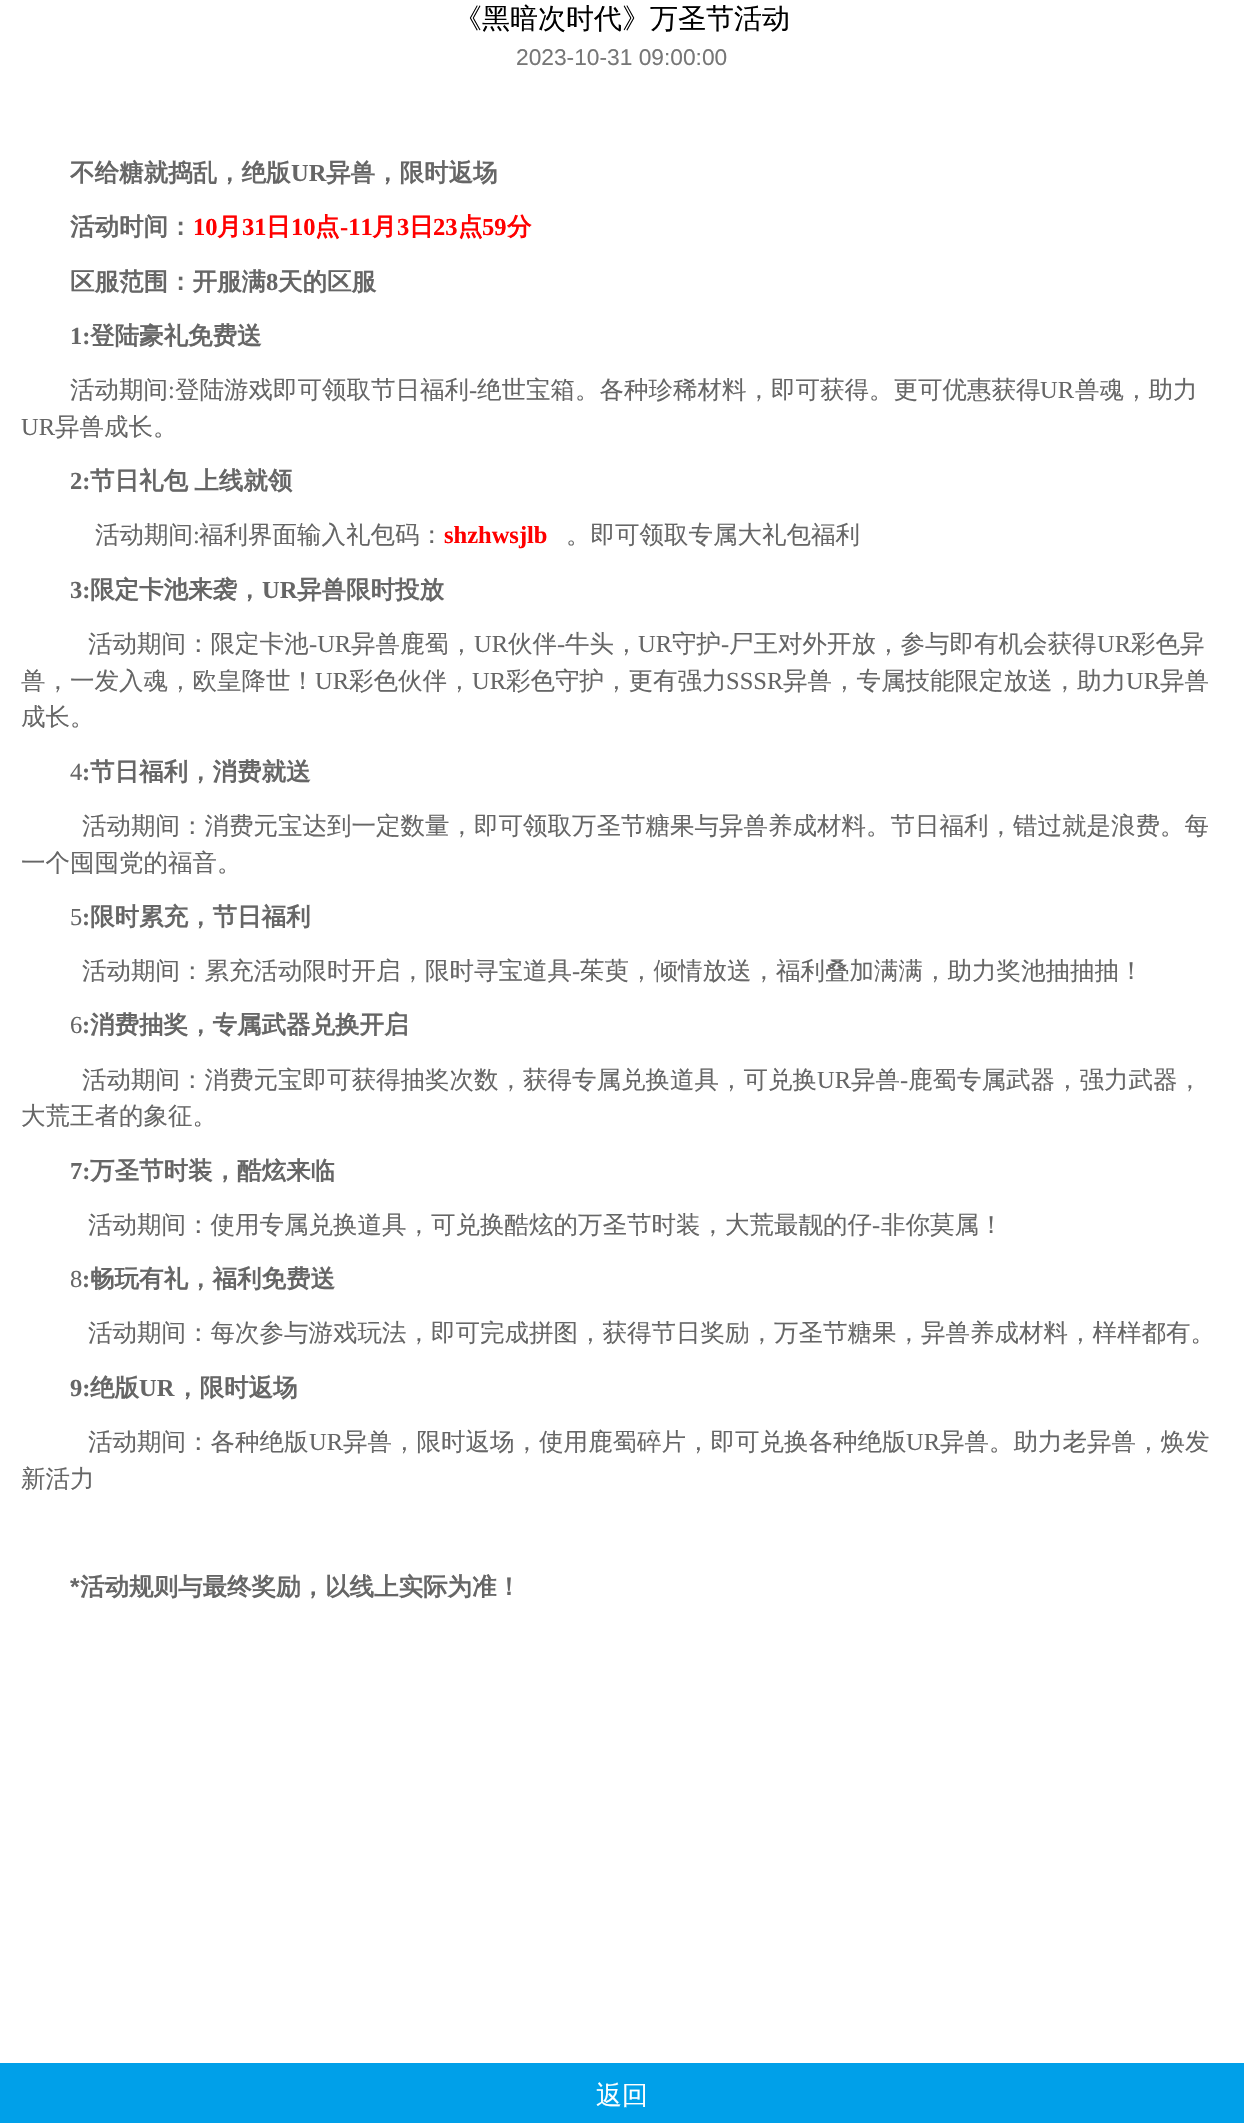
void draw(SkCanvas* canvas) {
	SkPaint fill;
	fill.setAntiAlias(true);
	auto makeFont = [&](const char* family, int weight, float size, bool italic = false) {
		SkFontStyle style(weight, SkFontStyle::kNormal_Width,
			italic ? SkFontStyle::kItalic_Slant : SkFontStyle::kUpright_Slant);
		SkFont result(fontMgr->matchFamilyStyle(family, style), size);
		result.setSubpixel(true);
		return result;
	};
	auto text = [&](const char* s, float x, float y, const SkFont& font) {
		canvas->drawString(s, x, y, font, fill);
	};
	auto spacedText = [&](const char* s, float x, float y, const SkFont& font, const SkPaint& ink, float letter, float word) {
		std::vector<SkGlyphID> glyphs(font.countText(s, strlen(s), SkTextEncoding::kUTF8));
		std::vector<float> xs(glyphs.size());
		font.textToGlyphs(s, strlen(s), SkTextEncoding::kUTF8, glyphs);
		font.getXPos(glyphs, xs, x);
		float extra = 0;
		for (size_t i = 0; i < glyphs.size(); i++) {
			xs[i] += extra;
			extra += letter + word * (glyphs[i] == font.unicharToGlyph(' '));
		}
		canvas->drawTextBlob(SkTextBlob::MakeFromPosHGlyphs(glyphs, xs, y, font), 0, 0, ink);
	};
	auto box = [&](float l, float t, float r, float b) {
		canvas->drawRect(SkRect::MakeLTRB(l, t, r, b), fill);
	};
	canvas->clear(0xFFFFFFFF);
	fill.setColor(0xFF00A0E9);
	box(0, 2063, 1244, 2123);
	auto font1 = makeFont("WenQuanYi Zen Hei", 500, 28);
	fill.setColor(0xFF000000);
	text("《黑暗次时代》万圣节活动", 454, 28, font1);
	auto font2 = makeFont("Liberation Sans", 400, 22.75f);
	fill.setColor(0xFF777777);
	text("2023-10-31 09:00:00", 516, 65, font2);
	auto font3 = makeFont("WenQuanYi Zen Hei", 700, 24.5f);
	fill.setColor(0xFF666666);
	text("不给糖就捣乱，绝版", 70, 181, font3);
	auto font4 = makeFont("Liberation Serif", 700, 24.5f);
	text("UR", 291, 181, font4);
	text("异兽，限时返场", 326, 181, font3);
	text("活动时间：", 70, 235, font3);
	fill.setColor(0xFFFF0000);
	text("10", 193, 235, font4);
	text("月", 217, 235, font3);
	text("31", 242, 235, font4);
	text("日", 266, 235, font3);
	text("10", 291, 235, font4);
	text("点", 315, 235, font3);
	text("-11", 340, 235, font4);
	text("月", 372, 235, font3);
	text("3", 397, 235, font4);
	text("日", 409, 235, font3);
	text("23", 433, 235, font4);
	text("点", 458, 235, font3);
	text("59", 482, 235, font4);
	text("分", 507, 235, font3);
	fill.setColor(0xFF666666);
	text("区服范围：开服满", 70, 290, font3);
	text("8", 266, 290, font4);
	text("天的区服", 278, 290, font3);
	text("1:", 70, 344, font4);
	text("登陆豪礼免费送", 90, 344, font3);
	auto font5 = makeFont("WenQuanYi Zen Hei", 500, 24.5f);
	text("活动期间", 70, 398, font5);
	auto font6 = makeFont("Liberation Serif", 400, 24.5f);
	text(":", 168, 398, font6);
	text("登陆游戏即可领取节日福利", 175, 398, font5);
	text("-", 469, 398, font6);
	text("绝世宝箱。各种珍稀材料，即可获得。更可优惠获得", 477, 398, font5);
	text("UR", 1040, 398, font6);
	text("兽魂，助力", 1075, 398, font5);
	text("UR", 21, 435, font6);
	text("异兽成长。", 55, 435, font5);
	text("2:", 70, 489, font4);
	spacedText("节日礼包 上线就领", 90, 489, font3, fill, 0, -1);
	text("活动期间", 95, 543, font5);
	text(":", 193, 543, font6);
	text("福利界面输入礼包码：", 199, 543, font5);
	fill.setColor(0xFFFF0000);
	text("shzhwsjlb", 444, 543, font4);
	fill.setColor(0xFF666666);
	text("。即可领取专属大礼包福利", 566, 543, font5);
	text("3:", 70, 598, font4);
	text("限定卡池来袭，", 90, 598, font3);
	text("UR", 262, 598, font4);
	text("异兽限时投放", 297, 598, font3);
	text("活动期间：限定卡池", 88, 652, font5);
	text("-UR", 309, 652, font6);
	text("异兽鹿蜀，", 351, 652, font5);
	text("UR", 474, 652, font6);
	text("伙伴", 508, 652, font5);
	text("-", 557, 652, font6);
	text("牛头，", 565, 652, font5);
	text("UR", 638, 652, font6);
	text("守护", 672, 652, font5);
	text("-", 721, 652, font6);
	text("尸王对外开放，参与即有机会获得", 729, 652, font5);
	text("UR", 1097, 652, font6);
	text("彩色异", 1131, 652, font5);
	text("兽，一发入魂，欧皇降世！", 21, 689, font5);
	text("UR", 315, 689, font6);
	text("彩色伙伴，", 349, 689, font5);
	text("UR", 472, 689, font6);
	text("彩色守护，更有强力", 506, 689, font5);
	text("SSSR", 726, 689, font6);
	text("异兽，专属技能限定放送，助力", 783, 689, font5);
	text("UR", 1126, 689, font6);
	text("异兽", 1160, 689, font5);
	text("成长。", 21, 725, font5);
	text("4", 70, 780, font6);
	text(":", 82, 780, font4);
	text("节日福利，消费就送", 90, 780, font3);
	text("活动期间：消费元宝达到一定数量，即可领取万圣节糖果与异兽养成材料。节日福利，错过就是浪费。每", 82, 834, font5);
	text("一个囤囤党的福音。", 21, 871, font5);
	text("5", 70, 925, font6);
	text(":", 82, 925, font4);
	text("限时累充，节日福利", 90, 925, font3);
	text("活动期间：累充活动限时开启，限时寻宝道具", 82, 979, font5);
	text("-", 572, 979, font6);
	text("茱萸，倾情放送，福利叠加满满，助力奖池抽抽抽！", 580, 979, font5);
	text("6", 70, 1033, font6);
	text(":", 82, 1033, font4);
	text("消费抽奖，专属武器兑换开启", 90, 1033, font3);
	text("活动期间：消费元宝即可获得抽奖次数，获得专属兑换道具，可兑换", 82, 1088, font5);
	text("UR", 817, 1088, font6);
	text("异兽", 851, 1088, font5);
	text("-", 900, 1088, font6);
	text("鹿蜀专属武器，强力武器，", 908, 1088, font5);
	text("大荒王者的象征。", 21, 1124, font5);
	text("7:", 70, 1179, font4);
	text("万圣节时装，酷炫来临", 90, 1179, font3);
	text("活动期间：使用专属兑换道具，可兑换酷炫的万圣节时装，大荒最靓的仔", 88, 1233, font5);
	text("-", 872, 1233, font6);
	text("非你莫属！", 881, 1233, font5);
	text("8", 70, 1287, font6);
	text(":", 82, 1287, font4);
	text("畅玩有礼，福利免费送", 90, 1287, font3);
	text("活动期间：每次参与游戏玩法，即可完成拼图，获得节日奖励，万圣节糖果，异兽养成材料，样样都有。", 88, 1341, font5);
	text("9:", 70, 1396, font4);
	text("绝版", 90, 1396, font3);
	text("UR", 139, 1396, font4);
	text("，限时返场", 175, 1396, font3);
	text("活动期间：各种绝版", 88, 1450, font5);
	text("UR", 309, 1450, font6);
	text("异兽，限时返场，使用鹿蜀碎片，即可兑换各种绝版", 343, 1450, font5);
	text("UR", 906, 1450, font6);
	text("异兽。助力老异兽，焕发", 940, 1450, font5);
	text("新活力", 21, 1487, font5);
	auto font7 = makeFont("Liberation Sans", 700, 24.5f);
	text("*", 70, 1595, font7);
	text("活动规则与最终奖励，以线上实际为准！", 80, 1595, font3);
	auto font8 = makeFont("WenQuanYi Zen Hei", 500, 26);
	fill.setColor(0xFFFFFFFF);
	text("返回", 596, 2104, font8);
}
